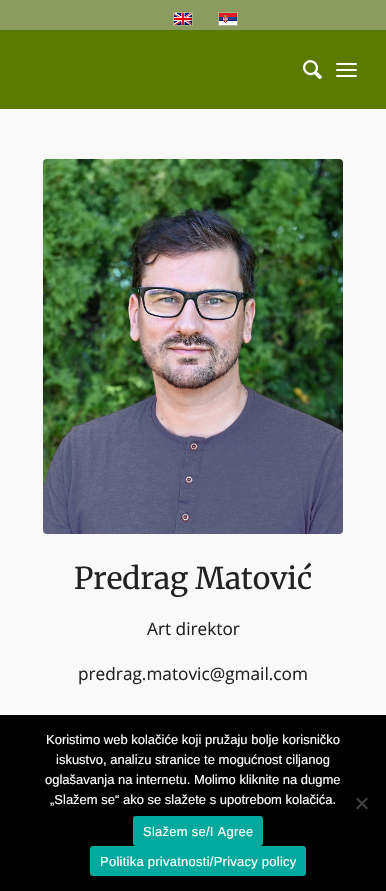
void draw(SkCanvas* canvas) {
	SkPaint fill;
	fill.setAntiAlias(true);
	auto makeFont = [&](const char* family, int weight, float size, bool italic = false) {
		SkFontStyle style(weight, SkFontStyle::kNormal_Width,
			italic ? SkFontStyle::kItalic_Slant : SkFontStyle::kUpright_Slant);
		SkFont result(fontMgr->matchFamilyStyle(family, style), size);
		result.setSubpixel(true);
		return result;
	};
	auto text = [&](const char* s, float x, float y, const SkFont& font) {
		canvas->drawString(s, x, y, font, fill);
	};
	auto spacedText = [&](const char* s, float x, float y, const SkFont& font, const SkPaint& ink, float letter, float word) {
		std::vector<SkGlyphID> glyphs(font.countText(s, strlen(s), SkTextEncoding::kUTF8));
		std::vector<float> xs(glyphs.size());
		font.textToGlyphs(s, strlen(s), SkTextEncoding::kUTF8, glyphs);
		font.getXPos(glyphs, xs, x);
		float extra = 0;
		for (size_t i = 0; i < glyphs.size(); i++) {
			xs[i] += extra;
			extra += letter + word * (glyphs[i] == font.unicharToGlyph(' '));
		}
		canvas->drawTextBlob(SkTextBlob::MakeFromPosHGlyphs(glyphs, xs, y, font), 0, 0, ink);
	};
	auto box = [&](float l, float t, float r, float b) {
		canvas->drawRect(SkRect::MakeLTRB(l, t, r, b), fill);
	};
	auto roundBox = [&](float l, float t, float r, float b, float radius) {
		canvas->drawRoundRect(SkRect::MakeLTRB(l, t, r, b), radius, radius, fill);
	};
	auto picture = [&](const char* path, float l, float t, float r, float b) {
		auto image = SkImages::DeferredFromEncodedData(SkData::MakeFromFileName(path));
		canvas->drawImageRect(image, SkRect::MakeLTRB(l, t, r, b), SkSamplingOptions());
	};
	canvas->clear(0xFFF9F9F9);
	fill.setColor(0xFF8C9C61);
	box(0, 0, 386, 30);
	fill.setStyle(SkPaint::kStroke_Style);
	fill.setStrokeWidth(1);
	fill.setColor(0xFFA3B081);
	canvas->drawRect(SkRect::MakeLTRB(173.5f, 12.5f, 192.5f, 25.5f), fill);
	picture("image0.png", 174, 13, 192, 25);
	canvas->drawRect(SkRect::MakeLTRB(218.5f, 12.5f, 237.5f, 25.5f), fill);
	picture("image1.png", 219, 13, 237, 25);
	fill.setStyle(SkPaint::kFill_Style);
	fill.setColor(0xFF5A7A02);
	box(0, 30, 386, 109);
	picture("image2.png", 303, 60, 322, 80);
	fill.setColor(0xFFFFFFFF);
	roundBox(336, 69, 357, 71, 1);
	roundBox(336, 63, 357, 65, 1);
	roundBox(336, 75, 357, 77, 1);
	picture("image3.png", 43, 159, 343, 534);
	fill.setColor(0xFF000000);
	box(0, 715, 386, 891);
	fill.setColor(0xFF404040);
	canvas->drawPath(SkPathBuilder().moveTo(366.5f, 797.5f).lineTo(368, 799).lineTo(357.5f, 809.5f).lineTo(356, 808).close().detach(), fill);
	canvas->drawPath(SkPathBuilder().moveTo(356, 799).lineTo(357.5f, 797.5f).lineTo(368, 808).lineTo(366.5f, 809.5f).close().detach(), fill);
	fill.setColor(0xFF00A99D);
	roundBox(133, 816, 263, 846, 3);
	roundBox(90, 846, 306, 876, 3);
	auto font1 = makeFont("Merriweather", 400, 30);
	fill.setColor(0xFF222222);
	text("Predrag Matović", 74, 589, font1);
	auto font2 = makeFont("Open Sans", 400, 17.25f);
	text("Art direktor", 147, 635, font2);
	text("predrag.matovic@gmail.com", 78, 680, font2);
	auto font3 = makeFont("Liberation Sans", 400, 13);
	fill.setColor(0xFFFFFFFF);
	text("Koristimo web kolačiće koji pružaju bolje korisničko", 46, 744, font3);
	text("iskustvo, analizu stranice te mogućnost ciljanog", 56, 764, font3);
	text("oglašavanja na internetu. Molimo kliknite na dugme", 45, 784, font3);
	text("„Slažem se“ ako se slažete s upotrebom kolačića.", 50, 804, font3);
	spacedText("Slažem se/I Agree", 143, 836, font3, fill, 0.25f, 0);
	spacedText("Politika privatnosti/Privacy policy", 100, 866, font3, fill, 0.25f, 0);
}
